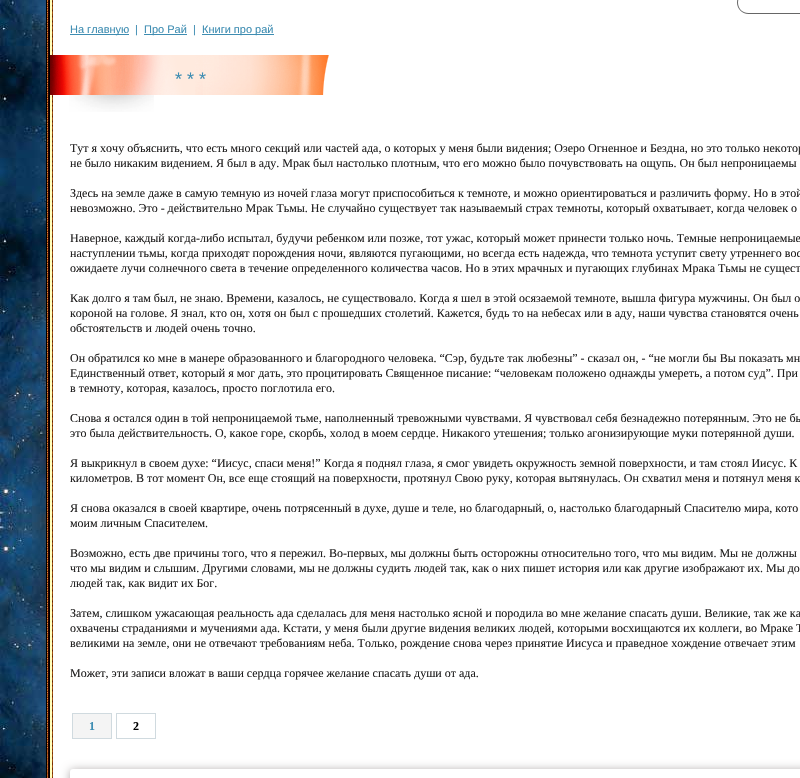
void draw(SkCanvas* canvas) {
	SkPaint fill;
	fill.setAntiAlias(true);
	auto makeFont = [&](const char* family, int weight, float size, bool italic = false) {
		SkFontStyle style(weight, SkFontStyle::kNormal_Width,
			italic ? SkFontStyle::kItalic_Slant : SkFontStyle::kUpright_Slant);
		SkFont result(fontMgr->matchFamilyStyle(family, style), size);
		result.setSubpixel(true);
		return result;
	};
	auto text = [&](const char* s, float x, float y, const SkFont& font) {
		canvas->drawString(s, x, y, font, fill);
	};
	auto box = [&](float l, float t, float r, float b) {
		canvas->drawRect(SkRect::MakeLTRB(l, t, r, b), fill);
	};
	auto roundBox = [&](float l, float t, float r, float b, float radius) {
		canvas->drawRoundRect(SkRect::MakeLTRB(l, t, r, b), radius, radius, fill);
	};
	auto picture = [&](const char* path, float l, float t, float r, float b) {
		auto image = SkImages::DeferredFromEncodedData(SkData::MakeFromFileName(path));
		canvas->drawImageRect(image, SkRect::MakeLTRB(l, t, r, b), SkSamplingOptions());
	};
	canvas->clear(0xFFFFFFFF);
	picture("image0.png", 0, 0, 46, 778);
	picture("image1.png", 45, 0, 800, 749);
	picture("image2.png", 737, 0, 800, 14);
	fill.setColor(0xFF3E8DB2);
	box(70, 34, 129, 35);
	box(144, 34, 187, 35);
	box(202, 34, 274, 35);
	picture("image3.png", 50, 55, 195, 95);
	picture("image4.png", 206, 55, 329, 95);
	picture("image5.png", 195, 55, 206, 95);
	picture("image6.png", 69, 95, 154, 112);
	fill.setColor(0xFFF4F4F4);
	canvas->drawRect(SkRect::MakeLTRB(72.5f, 713.5f, 111.5f, 738.5f), fill);
	fill.setStyle(SkPaint::kStroke_Style);
	fill.setStrokeWidth(1);
	fill.setColor(0xFFD0DADF);
	canvas->drawRect(SkRect::MakeLTRB(72.5f, 713.5f, 111.5f, 738.5f), fill);
	canvas->drawRect(SkRect::MakeLTRB(116.5f, 713.5f, 155.5f, 738.5f), fill);
	picture("image7.png", 45, 749, 800, 778);
	fill.setStyle(SkPaint::kFill_Style);
	fill.setColor(0xFFADA7A7);
	fill.setMaskFilter(SkMaskFilter::MakeBlur(kNormal_SkBlurStyle, 5));
	canvas->drawRoundRect(SkRect::MakeLTRB(70, 770, 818, 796), 3, 3, fill);
	fill.setMaskFilter(nullptr);
	fill.setColor(0xFFFFFFFF);
	roundBox(70, 769, 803, 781, 3);
	auto font1 = makeFont("Liberation Sans", 400, 11);
	fill.setColor(0xFF3E8DB2);
	text("На главную", 70, 33, font1);
	text("|", 135, 33, font1);
	text("Про Рай", 144, 33, font1);
	text("|", 193, 33, font1);
	text("Книги про рай", 202, 33, font1);
	auto font2 = makeFont("Liberation Sans", 400, 18);
	text("* * *", 175, 85, font2);
	auto font3 = makeFont("Liberation Serif", 400, 12);
	fill.setColor(0xFF1F1E1E);
	text("Тут я хочу объяснить, что есть много секций или частей ада, о которых у меня были видения; Озеро Огненное и Бездна, но это только некотор", 70, 152, font3);
	text("не было никаким видением. Я был в аду. Мрак был настолько плотным, что его можно было почувствовать на ощупь. Он был непроницаемы", 70, 167, font3);
	text("Здесь на земле даже в самую темную из ночей глаза могут приспособиться к темноте, и можно ориентироваться и различить форму. Но в этой", 70, 197, font3);
	text("невозможно. Это - действительно Мрак Тьмы. Не случайно существует так называемый страх темноты, который охватывает, когда человек о", 70, 212, font3);
	text("Наверное, каждый когда-либо испытал, будучи ребенком или позже, тот ужас, который может принести только ночь. Темные непроницаемые", 70, 242, font3);
	text("наступлении тьмы, когда приходят порождения ночи, являются пугающими, но всегда есть надежда, что темнота уступит свету утреннего вос", 70, 257, font3);
	text("ожидаете лучи солнечного света в течение определенного количества часов. Но в этих мрачных и пугающих глубинах Мрака Тьмы не сущест", 70, 272, font3);
	text("Как долго я там был, не знаю. Времени, казалось, не существовало. Когда я шел в этой осязаемой темноте, вышла фигура мужчины. Он был о", 70, 302, font3);
	text("короной на голове. Я знал, кто он, хотя он был с прошедших столетий. Кажется, будь то на небесах или в аду, наши чувства становятся очень", 70, 317, font3);
	text("обстоятельств и людей очень точно.", 70, 332, font3);
	text("Он обратился ко мне в манере образованного и благородного человека. “Сэр, будьте так любезны” - сказал он, - “не могли бы Вы показать мн", 70, 362, font3);
	text("Единственный ответ, который я мог дать, это процитировать Священное писание: “человекам положено однажды умереть, а потом суд”. При", 70, 377, font3);
	text("в темноту, которая, казалось, просто поглотила его.", 70, 392, font3);
	text("Снова я остался один в той непроницаемой тьме, наполненный тревожными чувствами. Я чувствовал себя безнадежно потерянным. Это не бы", 70, 422, font3);
	text("это была действительность. О, какое горе, скорбь, холод в моем сердце. Никакого утешения; только агонизирующие муки потерянной души.", 70, 437, font3);
	text("Я выкрикнул в своем духе: “Иисус, спаси меня!” Когда я поднял глаза, я смог увидеть окружность земной поверхности, и там стоял Иисус. К", 70, 467, font3);
	text("километров. В тот момент Он, все еще стоящий на поверхности, протянул Свою руку, которая вытянулась. Он схватил меня и потянул меня к", 70, 482, font3);
	text("Я снова оказался в своей квартире, очень потрясенный в духе, душе и теле, но благодарный, о, настолько благодарный Спасителю мира, кото", 70, 512, font3);
	text("моим личным Спасителем.", 70, 527, font3);
	text("Возможно, есть две причины того, что я пережил. Во-первых, мы должны быть осторожны относительно того, что мы видим. Мы не должны", 70, 557, font3);
	text("что мы видим и слышим. Другими словами, мы не должны судить людей так, как о них пишет история или как другие изображают их. Мы до", 70, 572, font3);
	text("людей так, как видит их Бог.", 70, 587, font3);
	text("Затем, слишком ужасающая реальность ада сделалась для меня настолько ясной и породила во мне желание спасать души. Великие, так же ка", 70, 617, font3);
	text("охвачены страданиями и мучениями ада. Кстати, у меня были другие видения великих людей, которыми восхищаются их коллеги, во Мраке Т", 70, 632, font3);
	text("великими на земле, они не отвечают требованиям неба. Только, рождение снова через принятие Иисуса и праведное хождение отвечает этим", 70, 647, font3);
	text("Может, эти записи вложат в ваши сердца горячее желание спасать души от ада.", 70, 677, font3);
	auto font4 = makeFont("Liberation Serif", 700, 12);
	fill.setColor(0xFF3E8DB2);
	text("1", 89, 730, font4);
	fill.setColor(0xFF000000);
	text("2", 133, 730, font4);
}
